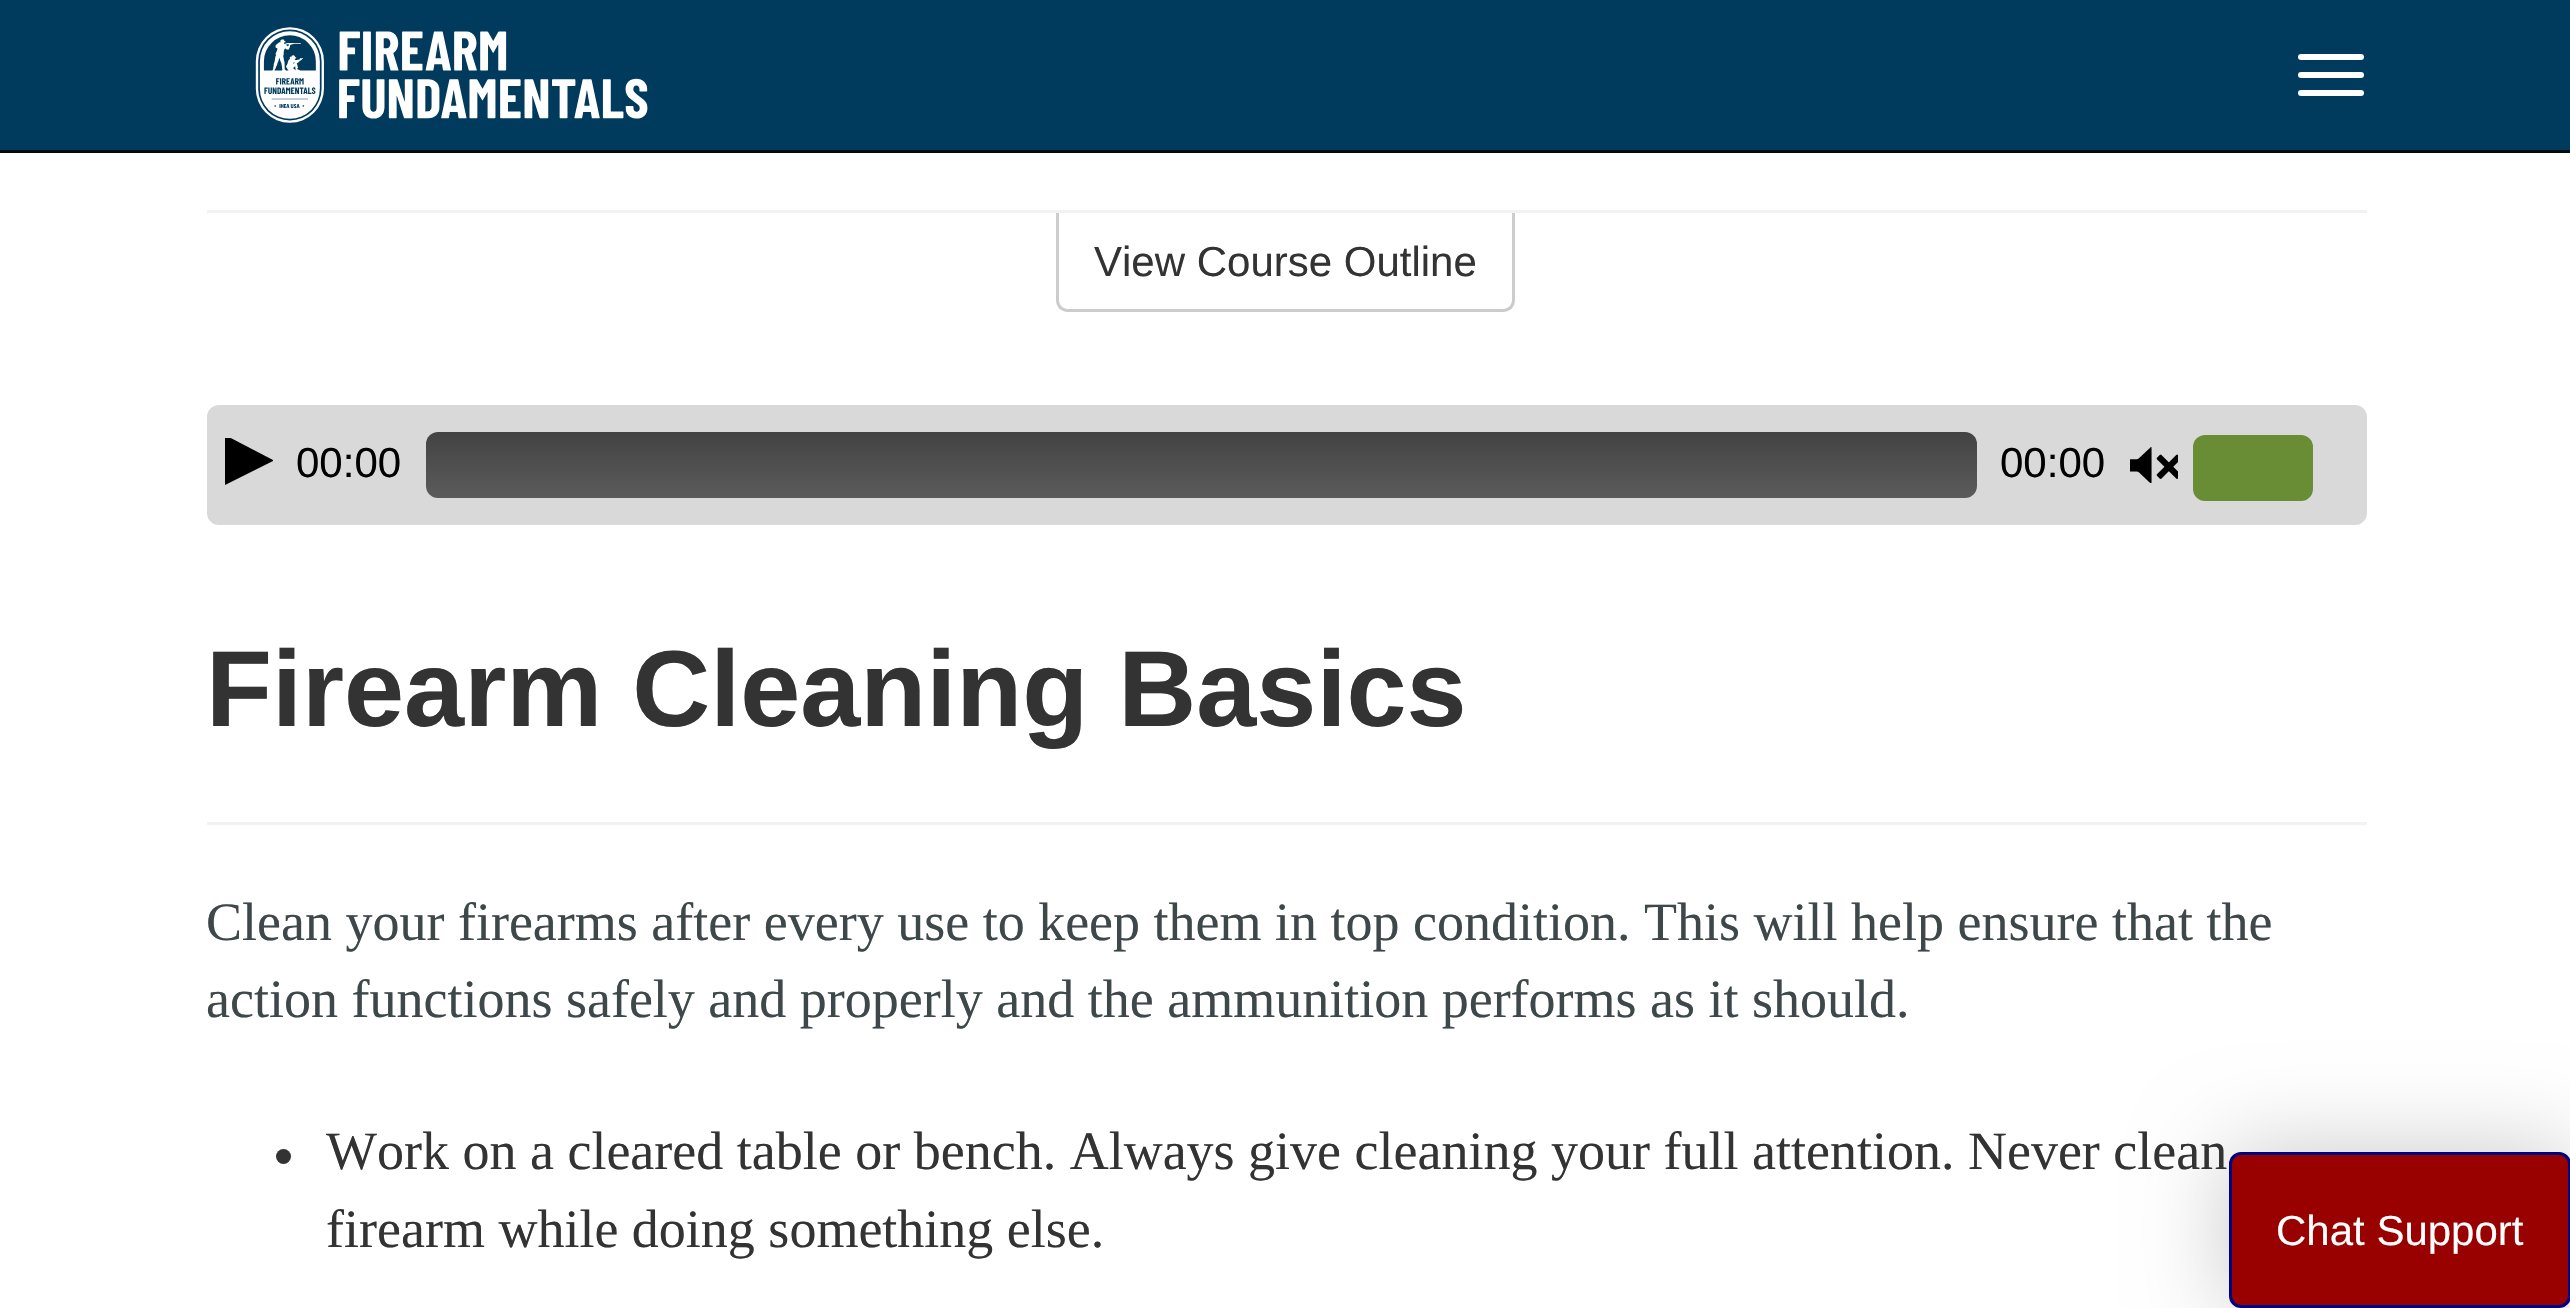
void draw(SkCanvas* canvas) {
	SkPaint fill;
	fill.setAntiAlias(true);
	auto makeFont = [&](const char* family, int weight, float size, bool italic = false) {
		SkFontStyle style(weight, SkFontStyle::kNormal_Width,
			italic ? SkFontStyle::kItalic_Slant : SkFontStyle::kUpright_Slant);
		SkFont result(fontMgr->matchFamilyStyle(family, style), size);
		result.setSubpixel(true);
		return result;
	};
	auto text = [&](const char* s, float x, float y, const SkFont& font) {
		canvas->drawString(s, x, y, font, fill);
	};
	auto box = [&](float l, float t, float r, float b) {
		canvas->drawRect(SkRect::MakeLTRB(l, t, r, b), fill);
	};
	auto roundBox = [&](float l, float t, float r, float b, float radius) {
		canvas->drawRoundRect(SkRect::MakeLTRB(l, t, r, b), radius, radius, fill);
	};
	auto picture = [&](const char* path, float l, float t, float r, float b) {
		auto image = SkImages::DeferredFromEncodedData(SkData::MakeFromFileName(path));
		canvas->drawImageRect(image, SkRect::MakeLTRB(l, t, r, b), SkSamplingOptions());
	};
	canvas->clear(0xFFFFFFFF);
	fill.setColor(0xFF003A5D);
	box(0, 0, 2570, 150);
	fill.setColor(0xFF000A11);
	box(0, 150, 2570, 153);
	picture("image0.png", 255, 27, 648, 123);
	fill.setColor(0xFFFFFFFF);
	roundBox(2298, 54, 2364, 60, 3);
	roundBox(2298, 72, 2364, 78, 3);
	roundBox(2298, 90, 2364, 96, 3);
	fill.setColor(0xFFF2F2F2);
	box(207, 210, 2367, 213);
	fill.setColor(0xFFCCCCCC);
	canvas->drawPath(SkPathBuilder(SkPathFillType::kEvenOdd).moveTo(1056, 213).lineTo(1515, 213).lineTo(1515, 300).cubicTo(1515, 307, 1510, 312, 1503, 312).lineTo(1068, 312).cubicTo(1061, 312, 1056, 307, 1056, 300).close().moveTo(1059, 213).lineTo(1512, 213).lineTo(1512, 300).cubicTo(1512, 305, 1508, 309, 1503, 309).lineTo(1068, 309).cubicTo(1063, 309, 1059, 305, 1059, 300).close().detach(), fill);
	fill.setColor(0xFFD9D9D9);
	canvas->drawRoundRect(SkRect::MakeLTRB(208.5f, 406.5f, 2365.5f, 523.5f), 10.5f, 10.5f, fill);
	fill.setStyle(SkPaint::kStroke_Style);
	fill.setStrokeWidth(3);
	canvas->drawRoundRect(SkRect::MakeLTRB(208.5f, 406.5f, 2365.5f, 523.5f), 10.5f, 10.5f, fill);
	canvas->save();
	canvas->clipRect(SkRect::MakeLTRB(225, 438, 273, 486));
	fill.setStyle(SkPaint::kFill_Style);
	fill.setColor(0xFF000000);
	canvas->drawPath(SkPathBuilder().moveTo(273, 461).lineTo(225, 485).lineTo(225, 435).lineTo(273, 460).cubicTo(273, 460, 273, 461, 273, 461).close().detach(), fill);
	canvas->restore();
	{
		const SkColor colors[] = {0xFF434343, 0xFF5B5B5B};
		const float stops[] = {0, 1};
		const SkPoint ends[] = {{1202, 432}, {1202, 498}};
		fill.setShader(SkGradientShader::MakeLinear(ends, colors, stops, 2, SkTileMode::kClamp));
		fill.setAlpha(255);
	}
	roundBox(426, 432, 1977, 498, 12);
	picture("image1.png", 2130, 447, 2178, 483);
	fill.setShader(nullptr);
	fill.setColor(0xFF688D34);
	roundBox(2193, 435, 2313, 501, 12);
	fill.setColor(0xFFF2F2F2);
	box(207, 822, 2367, 825);
	fill.setColor(0xFF333333);
	canvas->drawCircle(283.5f, 1156.5f, 7.5f, fill);
	fill.setColor(0x33000000);
	fill.setMaskFilter(SkMaskFilter::MakeBlur(kNormal_SkBlurStyle, 45));
	canvas->drawRoundRect(SkRect::MakeLTRB(2226, 1149, 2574, 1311), 15, 15, fill);
	fill.setMaskFilter(nullptr);
	fill.setColor(0xFF990000);
	canvas->drawRoundRect(SkRect::MakeLTRB(2230.5f, 1153.5f, 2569.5f, 1306.5f), 10.5f, 10.5f, fill);
	fill.setStyle(SkPaint::kStroke_Style);
	fill.setColor(0xFF000080);
	canvas->drawRoundRect(SkRect::MakeLTRB(2230.5f, 1153.5f, 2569.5f, 1306.5f), 10.5f, 10.5f, fill);
	auto font1 = makeFont("Liberation Sans", 400, 42);
	fill.setStyle(SkPaint::kFill_Style);
	fill.setColor(0xFF333333);
	text("View Course Outline", 1094, 276, font1);
	fill.setColor(0xFF000000);
	text("00:00", 296, 477, font1);
	text("00:00", 2000, 477, font1);
	auto font2 = makeFont("Liberation Sans", 700, 108);
	fill.setColor(0xFF333333);
	text("Firearm Cleaning Basics", 206, 726, font2);
	auto font3 = makeFont("Liberation Serif", 400, 54);
	fill.setColor(0xFF3E4749);
	text("Clean your firearms after every use to keep them in top condition. This will help ensure that the", 206, 940, font3);
	text("action functions safely and properly and the ammunition performs as it should.", 206, 1017, font3);
	fill.setColor(0xFF333333);
	text("Work on a cleared table or bench. Always give cleaning your full attention. Never clean", 326, 1169, font3);
	text("firearm while doing something else.", 326, 1247, font3);
	fill.setColor(0xFFFFFFFF);
	text("Chat Support", 2276, 1245, font1);
}
